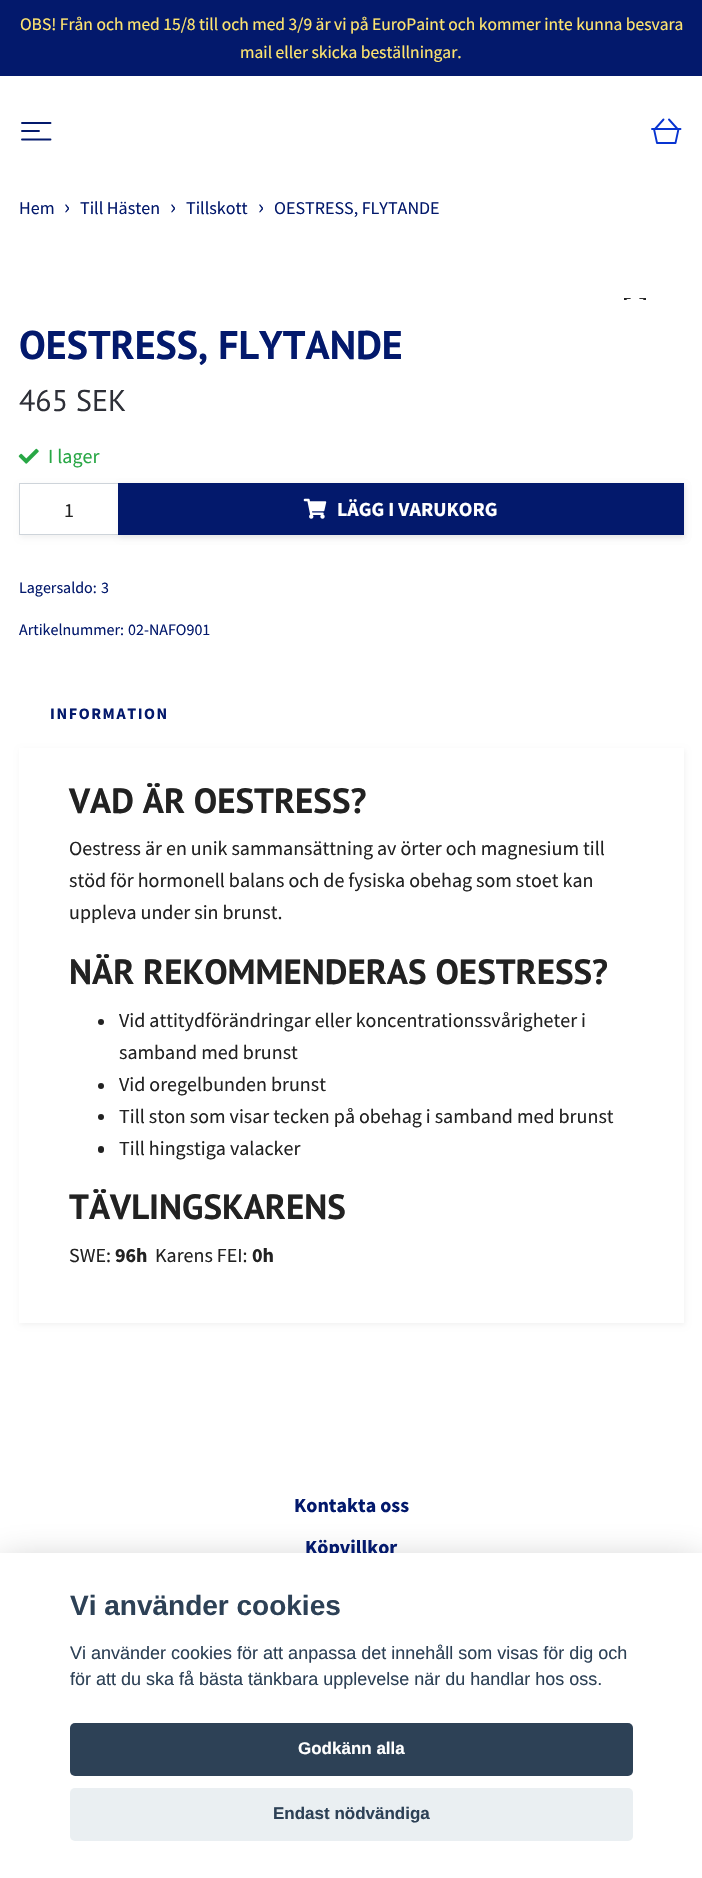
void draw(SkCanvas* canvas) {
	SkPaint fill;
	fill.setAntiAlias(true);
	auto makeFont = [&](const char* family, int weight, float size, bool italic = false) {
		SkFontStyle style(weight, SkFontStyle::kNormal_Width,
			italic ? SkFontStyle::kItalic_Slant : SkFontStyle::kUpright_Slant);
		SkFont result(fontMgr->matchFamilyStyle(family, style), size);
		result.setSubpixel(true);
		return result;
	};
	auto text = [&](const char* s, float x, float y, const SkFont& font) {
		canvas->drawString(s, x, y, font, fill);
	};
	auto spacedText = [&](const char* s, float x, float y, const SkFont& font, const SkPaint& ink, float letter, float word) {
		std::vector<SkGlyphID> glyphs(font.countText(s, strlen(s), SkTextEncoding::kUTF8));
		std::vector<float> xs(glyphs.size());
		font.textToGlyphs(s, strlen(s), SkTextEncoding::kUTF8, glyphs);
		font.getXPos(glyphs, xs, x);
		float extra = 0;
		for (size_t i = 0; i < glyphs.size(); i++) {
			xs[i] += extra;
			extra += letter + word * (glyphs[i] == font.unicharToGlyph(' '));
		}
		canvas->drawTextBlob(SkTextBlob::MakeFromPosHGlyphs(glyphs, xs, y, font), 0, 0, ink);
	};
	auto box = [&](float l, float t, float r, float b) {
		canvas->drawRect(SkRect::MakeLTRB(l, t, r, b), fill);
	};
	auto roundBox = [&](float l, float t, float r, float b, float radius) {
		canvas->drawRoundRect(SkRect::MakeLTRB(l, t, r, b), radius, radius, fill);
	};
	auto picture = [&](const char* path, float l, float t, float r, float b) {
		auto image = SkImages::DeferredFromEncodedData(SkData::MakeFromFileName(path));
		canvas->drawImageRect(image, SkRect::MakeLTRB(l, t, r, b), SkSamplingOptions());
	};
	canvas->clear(0xFFFFFFFF);
	fill.setColor(0xFF03196C);
	box(0, 0, 702, 76);
	fill.setStyle(SkPaint::kStroke_Style);
	fill.setStrokeWidth(1.9f);
	fill.setStrokeCap(SkPaint::kRound_Cap);
	fill.setStrokeJoin(SkPaint::kRound_Join);
	canvas->drawPath(SkPathBuilder().moveTo(22, 123).lineTo(50.5f, 123).moveTo(22, 131).lineTo(39, 131).moveTo(22, 139.5f).lineTo(50.5f, 139.5f).detach(), fill);
	fill.setColor(0xFF0834D1);
	canvas->drawPath(SkPathBuilder().moveTo(654, 129).lineTo(657, 143).lineTo(675.5f, 143).lineTo(678.5f, 129).moveTo(663.5f, 119.5f).lineTo(655, 129).moveTo(669, 119.5f).lineTo(677.5f, 129).moveTo(652, 129).lineTo(680.5f, 129).detach(), fill);
	picture("image0.png", 624, 298, 646, 300);
	picture("image1.png", 18, 448, 39, 464);
	canvas->save();
	canvas->clipPath(SkPathBuilder(SkPathFillType::kEvenOdd).moveTo(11, 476).lineTo(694, 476).lineTo(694, 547).lineTo(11, 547).close().moveTo(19, 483).lineTo(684, 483).lineTo(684, 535).lineTo(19, 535).close().detach(), true);
	fill.setStyle(SkPaint::kFill_Style);
	fill.setColor(0x0D000000);
	fill.setMaskFilter(SkMaskFilter::MakeBlur(kNormal_SkBlurStyle, 2.5f));
	canvas->drawRect(SkRect::MakeLTRB(20, 485, 685, 538), fill);
	fill.setMaskFilter(nullptr);
	canvas->restore();
	fill.setStyle(SkPaint::kStroke_Style);
	fill.setStrokeWidth(1);
	fill.setStrokeCap(SkPaint::kButt_Cap);
	fill.setStrokeJoin(SkPaint::kMiter_Join);
	fill.setColor(0xFFCED4DA);
	canvas->drawRect(SkRect::MakeLTRB(19.5f, 483.5f, 118.5f, 534.5f), fill);
	fill.setStyle(SkPaint::kFill_Style);
	fill.setColor(0x0D000000);
	fill.setMaskFilter(SkMaskFilter::MakeBlur(kNormal_SkBlurStyle, 2.5f));
	canvas->drawRect(SkRect::MakeLTRB(119, 485, 685, 538), fill);
	fill.setMaskFilter(nullptr);
	fill.setColor(0xFF03196C);
	box(118, 483, 684, 535);
	picture("image2.png", 303, 498, 327, 519);
	fill.setColor(0x0D000000);
	fill.setMaskFilter(SkMaskFilter::MakeBlur(kNormal_SkBlurStyle, 2.5f));
	canvas->drawRect(SkRect::MakeLTRB(20, 750, 685, 1325), fill);
	fill.setMaskFilter(nullptr);
	fill.setColor(0xFFFFFFFF);
	box(19, 748, 684, 1323);
	fill.setColor(0xFF222222);
	canvas->drawCircle(101, 1022, 3, fill);
	canvas->drawCircle(101, 1086, 3, fill);
	canvas->drawCircle(101, 1117, 3, fill);
	roundBox(98, 1146, 104, 1153, 3);
	fill.setColor(0x47020203);
	fill.setMaskFilter(SkMaskFilter::MakeBlur(kNormal_SkBlurStyle, 19));
	canvas->drawRect(SkRect::MakeLTRB(0, 1565, 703, 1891), fill);
	fill.setMaskFilter(nullptr);
	auto font1 = makeFont("Source Sans Pro", 400, 17.5f);
	fill.setColor(0xFFFFE56F);
	text("OBS! Från och med 15/8 till och med 3/9 är vi på EuroPaint och kommer inte kunna besvara", 20, 30, font1);
	text("mail eller skicka beställningar.", 240, 58, font1);
	auto font2 = makeFont("Source Sans Pro", 400, 18);
	fill.setColor(0xFF03196C);
	text("Hem", 19, 214, font2);
	auto font3 = makeFont("Source Sans Pro", 400, 22);
	text("›", 64, 214, font3);
	text("Till Hästen", 80, 214, font2);
	text("›", 170, 214, font3);
	text("Tillskott", 186, 214, font2);
	text("›", 258, 214, font3);
	text("OESTRESS, FLYTANDE", 274, 214, font2);
	auto font4 = makeFont("PT Sans", 700, 40);
	text("OESTRESS, FLYTANDE", 19, 359, font4);
	auto font5 = makeFont("PT Sans", 400, 30);
	fill.setColor(0xFF2E3038);
	text("465 SEK", 19, 411, font5);
	auto font6 = makeFont("Source Sans Pro", 400, 20);
	fill.setColor(0xFF28A745);
	text("I lager", 48, 463, font6);
	fill.setColor(0xFF222222);
	text("1", 64, 517, font6);
	auto font7 = makeFont("Source Sans Pro", 700, 20);
	fill.setColor(0xFFFFFFFF);
	text("LÄGG I VARUKORG", 337, 516, font7);
	auto font8 = makeFont("Source Sans Pro", 400, 16);
	fill.setColor(0xFF03196C);
	text("Lagersaldo:", 19, 593, font8);
	text("3", 101, 593, font8);
	text("Artikelnummer:", 19, 635, font8);
	text("02-NAFO901", 128, 635, font8);
	auto font9 = makeFont("Source Sans Pro", 700, 16);
	spacedText("INFORMATION", 50, 719, font9, fill, 1.6f, 0);
	auto font10 = makeFont("PT Sans", 700, 35);
	fill.setColor(0xFF222222);
	text("VAD ÄR OESTRESS?", 69, 813, font10);
	text("Oestress är en unik sammansättning av örter och magnesium till", 69, 855, font6);
	text("stöd för hormonell balans och de fysiska obehag som stoet kan", 69, 887, font6);
	text("uppleva under sin brunst.", 69, 919, font6);
	text("NÄR REKOMMENDERAS OESTRESS?", 69, 984, font10);
	text("Vid attitydförändringar eller koncentrationssvårigheter i", 119, 1027, font6);
	text("samband med brunst", 119, 1059, font6);
	text("Vid oregelbunden brunst", 119, 1091, font6);
	text("Till ston som visar tecken på obehag i samband med brunst", 119, 1123, font6);
	text("Till hingstiga valacker", 119, 1155, font6);
	text("TÄVLINGSKARENS", 69, 1219, font10);
	text("SWE:", 69, 1262, font6);
	text("96h", 115, 1262, font7);
	text("Karens FEI:", 155, 1262, font6);
	text("0h", 252, 1262, font7);
	fill.setColor(0xFF03196C);
	text("Kontakta oss", 294, 1512, font7);
	text("Köpvillkor", 305, 1554, font7);
	fill.setColor(0xFFFFFFFF);
	box(0, 1553, 702, 1878);
	auto font11 = makeFont("Liberation Sans", 700, 28);
	fill.setColor(0xFF2D4156);
	text("Vi använder cookies", 70, 1615, font11);
	auto font12 = makeFont("Liberation Sans", 400, 18);
	text("Vi använder cookies för att anpassa det innehåll som visas för dig och", 70, 1659, font12);
	text("för att du ska få bästa tänkbara upplevelse när du handlar hos oss.", 70, 1685, font12);
	roundBox(70, 1723, 633, 1776, 5);
	auto font13 = makeFont("Liberation Sans", 700, 17);
	fill.setColor(0xFFFFFFFF);
	text("Godkänn alla", 298, 1754, font13);
	fill.setColor(0xFFEAEFF2);
	roundBox(70, 1788, 633, 1841, 5);
	fill.setColor(0xFF2D4156);
	text("Endast nödvändiga", 273, 1819, font13);
}
